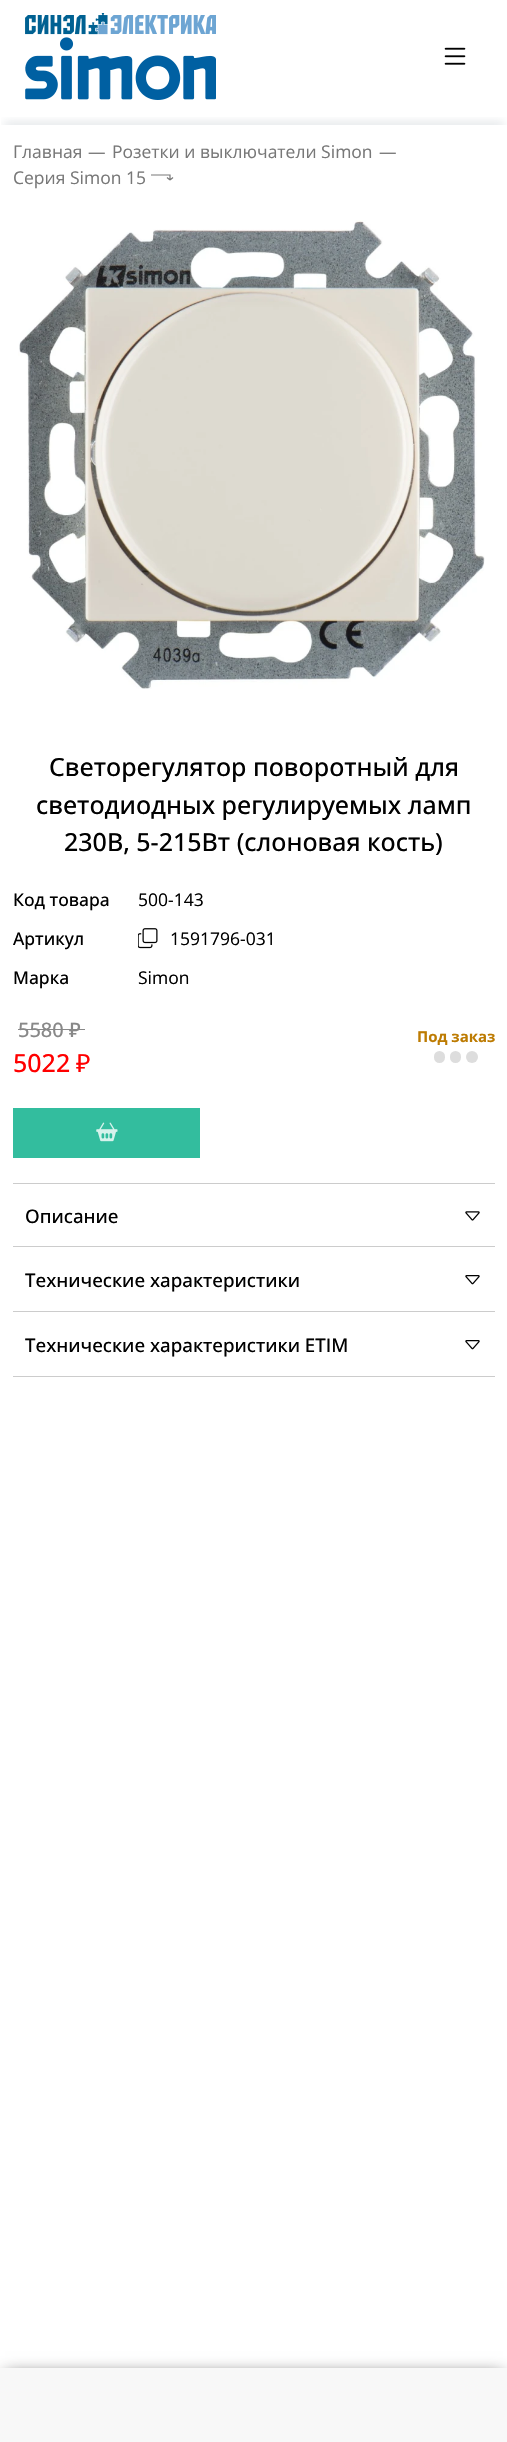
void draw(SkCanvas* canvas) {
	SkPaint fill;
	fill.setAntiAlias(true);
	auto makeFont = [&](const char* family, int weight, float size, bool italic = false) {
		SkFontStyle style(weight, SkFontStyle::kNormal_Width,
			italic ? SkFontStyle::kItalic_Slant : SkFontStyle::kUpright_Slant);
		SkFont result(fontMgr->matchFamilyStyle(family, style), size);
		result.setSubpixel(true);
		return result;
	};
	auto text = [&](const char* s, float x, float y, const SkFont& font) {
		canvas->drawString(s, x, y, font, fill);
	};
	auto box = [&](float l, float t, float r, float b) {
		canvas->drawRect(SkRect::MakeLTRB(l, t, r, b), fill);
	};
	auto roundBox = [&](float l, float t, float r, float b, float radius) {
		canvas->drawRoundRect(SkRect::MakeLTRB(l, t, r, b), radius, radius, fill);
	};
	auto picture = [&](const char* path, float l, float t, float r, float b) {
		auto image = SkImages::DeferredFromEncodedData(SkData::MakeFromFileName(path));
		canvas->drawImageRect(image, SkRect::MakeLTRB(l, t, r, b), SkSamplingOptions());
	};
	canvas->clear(0xFFFFFFFF);
	picture("image0.png", 25, 13, 216, 100);
	picture("image1.png", 444, 47, 466, 65);
	canvas->save();
	canvas->clipRect(SkRect::MakeLTRB(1, 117, 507, 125));
	fill.setColor(0x33223C50);
	fill.setMaskFilter(SkMaskFilter::MakeBlur(kNormal_SkBlurStyle, 5));
	canvas->drawRect(SkRect::MakeLTRB(4, 123, 504, 128), fill);
	fill.setMaskFilter(nullptr);
	canvas->restore();
	fill.setStyle(SkPaint::kStroke_Style);
	fill.setStrokeWidth(1.2f);
	fill.setColor(0xFF787878);
	canvas->drawPath(SkPathBuilder().moveTo(151, 175).lineTo(170, 175).lineTo(170, 180).moveTo(170, 180).lineTo(173, 177.5f).moveTo(170, 180).lineTo(167, 177.5f).detach(), fill);
	picture("image2.png", 18, 220, 485, 689);
	picture("image3.png", 138, 928, 158, 949);
	fill.setStyle(SkPaint::kFill_Style);
	fill.setColor(0xFF888888);
	box(18, 1029, 64, 1030);
	box(64, 1029, 85, 1030);
	fill.setColor(0xFFDDDDDD);
	roundBox(434, 1051, 445, 1063, 5.5f);
	roundBox(450, 1051, 461, 1063, 5.5f);
	canvas->drawCircle(472, 1057, 6, fill);
	fill.setColor(0xFF33BD9E);
	box(13, 1108, 200, 1158);
	picture("image4.png", 96, 1122, 118, 1142);
	fill.setColor(0xFFCCCCCC);
	box(13, 1183, 495, 1184);
	box(13, 1246, 495, 1247);
	picture("image5.png", 465, 1211, 480, 1221);
	box(13, 1311, 495, 1312);
	picture("image6.png", 465, 1275, 480, 1285);
	box(13, 1376, 495, 1377);
	picture("image6.png", 465, 1340, 480, 1350);
	fill.setColor(0xBF000000);
	fill.setMaskFilter(SkMaskFilter::MakeBlur(kNormal_SkBlurStyle, 8));
	canvas->drawRect(SkRect::MakeLTRB(5, 2375, 503, 2440), fill);
	fill.setMaskFilter(nullptr);
	fill.setColor(0xFFF8F8F8);
	box(0, 2368, 507, 2442);
	auto font1 = makeFont("Open Sans", 400, 17.5f);
	fill.setColor(0xFF787878);
	text("Главная", 13, 158, font1);
	text("—", 88, 158, font1);
	text("Розетки и выключатели Simon", 112, 158, font1);
	text("—", 379, 158, font1);
	text("Серия Simon 15", 13, 184, font1);
	auto font2 = makeFont("Open Sans", 500, 25);
	fill.setColor(0xFF000000);
	text("Светорегулятор поворотный для", 49, 776, font2);
	text("светодиодных регулируемых ламп", 36, 814, font2);
	text("230В, 5-215Вт (слоновая кость)", 64, 851, font2);
	auto font3 = makeFont("Open Sans", 500, 17.5f);
	text("Код товара", 13, 906, font3);
	text("500-143", 138, 906, font1);
	text("Артикул", 13, 945, font3);
	text("1591796-031", 170, 945, font1);
	text("Марка", 13, 984, font3);
	text("Simon", 138, 984, font1);
	auto font4 = makeFont("Open Sans", 500, 20);
	fill.setColor(0xFF888888);
	text("5580", 18, 1037, font4);
	auto font5 = makeFont("Noto Sans", 500, 20);
	text("₽", 69, 1037, font5);
	fill.setColor(0xFFFF0000);
	text("5022", 13, 1072, font2);
	auto font6 = makeFont("Noto Sans", 400, 25);
	text("₽", 76, 1072, font6);
	auto font7 = makeFont("Open Sans", 700, 15);
	fill.setColor(0xFFBD7B02);
	text("Под заказ", 417, 1042, font7);
	auto font8 = makeFont("Open Sans", 500, 18.75f);
	fill.setColor(0xFF000000);
	text("Описание", 25, 1223, font8);
	text("Технические характеристики", 25, 1287, font8);
	text("Технические характеристики ETIM", 25, 1352, font8);
}
